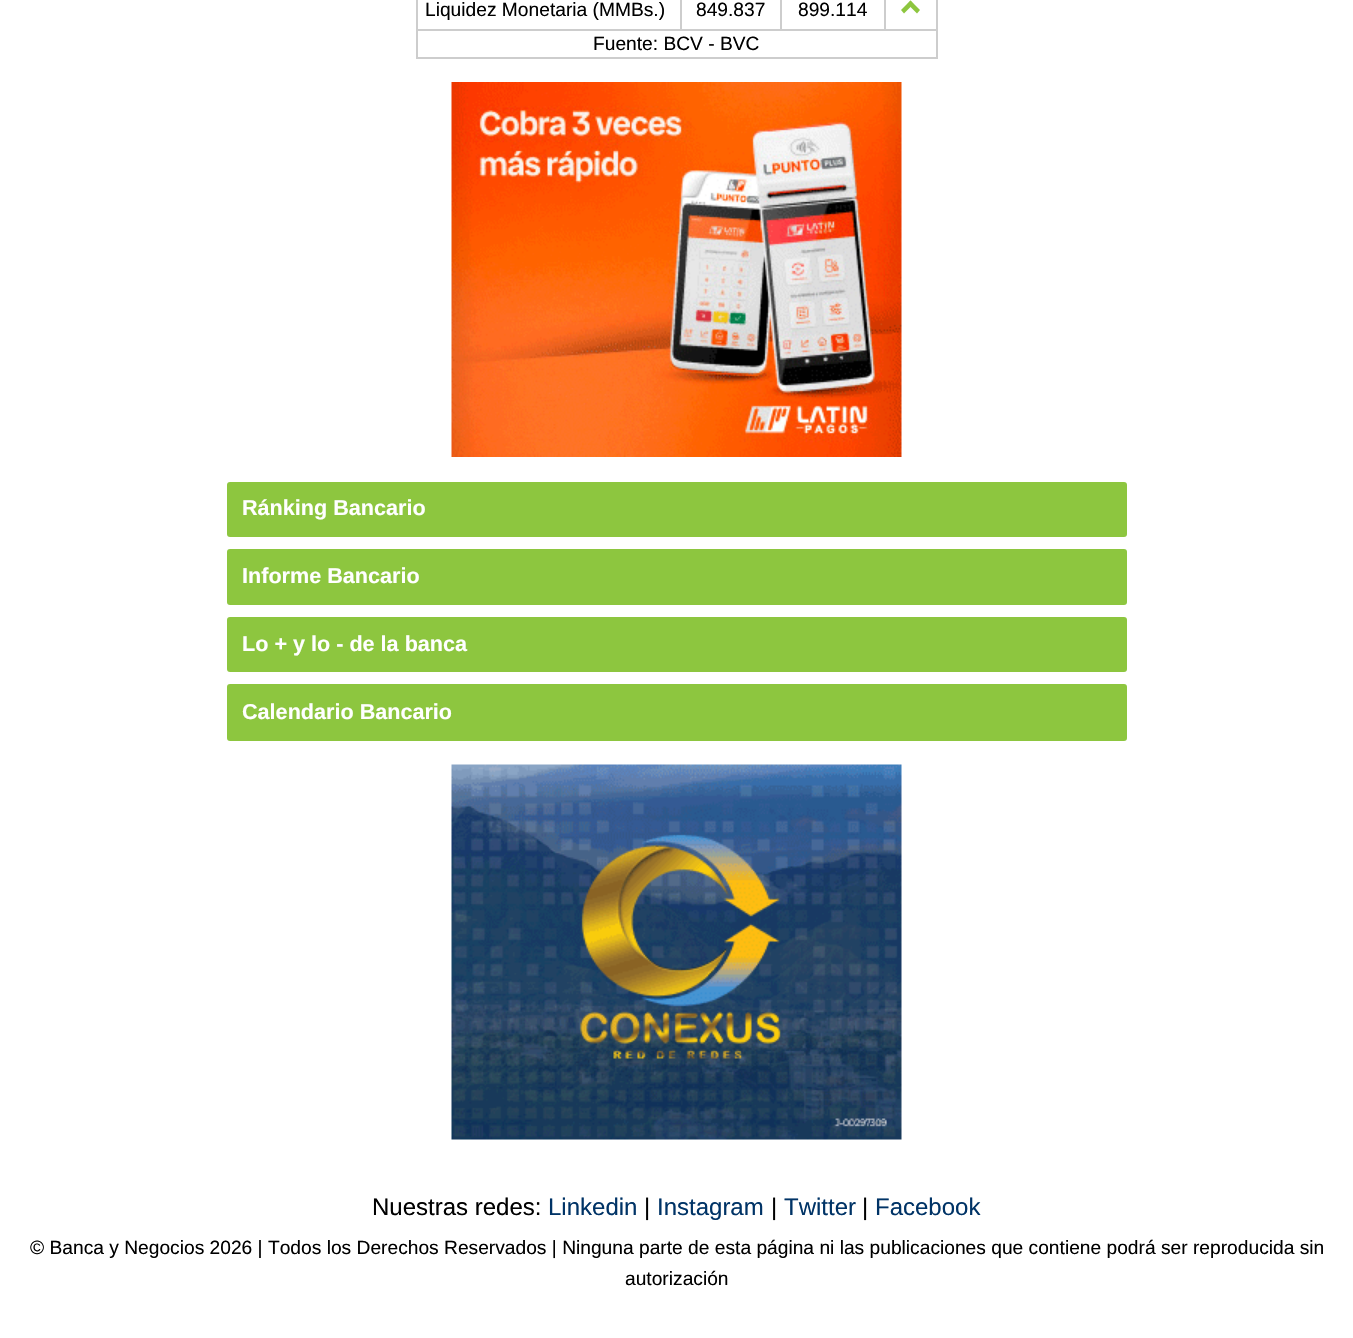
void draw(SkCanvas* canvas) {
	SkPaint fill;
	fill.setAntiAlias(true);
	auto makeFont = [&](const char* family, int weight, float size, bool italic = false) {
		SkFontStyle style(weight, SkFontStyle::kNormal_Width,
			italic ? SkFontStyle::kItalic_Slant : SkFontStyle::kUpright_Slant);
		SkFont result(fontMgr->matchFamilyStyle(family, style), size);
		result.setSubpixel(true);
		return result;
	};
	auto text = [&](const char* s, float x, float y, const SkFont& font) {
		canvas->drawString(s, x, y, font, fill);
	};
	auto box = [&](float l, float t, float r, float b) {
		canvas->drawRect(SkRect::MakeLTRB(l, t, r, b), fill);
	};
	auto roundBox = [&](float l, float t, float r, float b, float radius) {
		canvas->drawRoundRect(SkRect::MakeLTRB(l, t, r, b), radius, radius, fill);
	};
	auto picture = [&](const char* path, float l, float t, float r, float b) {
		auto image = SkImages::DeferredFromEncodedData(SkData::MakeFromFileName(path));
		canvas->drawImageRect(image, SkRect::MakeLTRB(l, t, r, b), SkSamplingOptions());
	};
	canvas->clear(0xFFFFFFFF);
	fill.setColor(0xFFCDCDCD);
	box(936, 0, 938, 59);
	box(416, 57, 938, 59);
	box(416, 0, 418, 59);
	box(416, 29, 938, 31);
	box(680, 0, 682, 30);
	box(780, 0, 782, 30);
	box(884, 0, 886, 30);
	fill.setColor(0xFF8DC63F);
	canvas->drawPath(SkPathBuilder().moveTo(904, 13.5f).lineTo(901, 10).lineTo(910.5f, 0.5f).lineTo(913.5f, 4).close().detach(), fill);
	canvas->drawPath(SkPathBuilder().moveTo(917, 13.5f).lineTo(907.5f, 4).lineTo(910.5f, 0.5f).lineTo(920, 10).close().detach(), fill);
	picture("image0.png", 451, 82, 902, 457);
	roundBox(227, 482, 1127, 537, 3);
	roundBox(227, 549, 1127, 605, 3);
	roundBox(227, 617, 1127, 672, 3);
	roundBox(227, 684, 1127, 741, 3);
	picture("image1.png", 451, 764, 902, 1140);
	auto font1 = makeFont("Liberation Sans", 400, 19.2f);
	fill.setColor(0xFF000000);
	text("Liquidez Monetaria (MMBs.)", 425, 16, font1);
	text("849.837", 696, 16, font1);
	text("899.114", 798, 16, font1);
	text("Fuente: BCV - BVC", 593, 50, font1);
	auto font2 = makeFont("Liberation Sans", 700, 21.6f);
	fill.setColor(0xFFFFFFFF);
	text("Ránking Bancario", 242, 515, font2);
	text("Informe Bancario", 242, 583, font2);
	text("Lo + y lo - de la banca", 242, 651, font2);
	text("Calendario Bancario", 242, 719, font2);
	auto font3 = makeFont("Liberation Sans", 400, 24);
	fill.setColor(0xFF000000);
	text("Nuestras redes:", 372, 1215, font3);
	fill.setColor(0xFF003366);
	text("Linkedin", 548, 1215, font3);
	fill.setColor(0xFF000000);
	text("|", 644, 1215, font3);
	fill.setColor(0xFF003366);
	text("Instagram", 657, 1215, font3);
	fill.setColor(0xFF000000);
	text("|", 771, 1215, font3);
	fill.setColor(0xFF003366);
	text("Twitter", 784, 1215, font3);
	fill.setColor(0xFF000000);
	text("|", 862, 1215, font3);
	fill.setColor(0xFF003366);
	text("Facebook", 875, 1215, font3);
	fill.setColor(0xFF000000);
	text("© Banca y Negocios 2026 | Todos los Derechos Reservados | Ninguna parte de esta página ni las publicaciones que contiene podrá ser reproducida sin", 30, 1254, font1);
	text("autorización", 625, 1285, font1);
}
